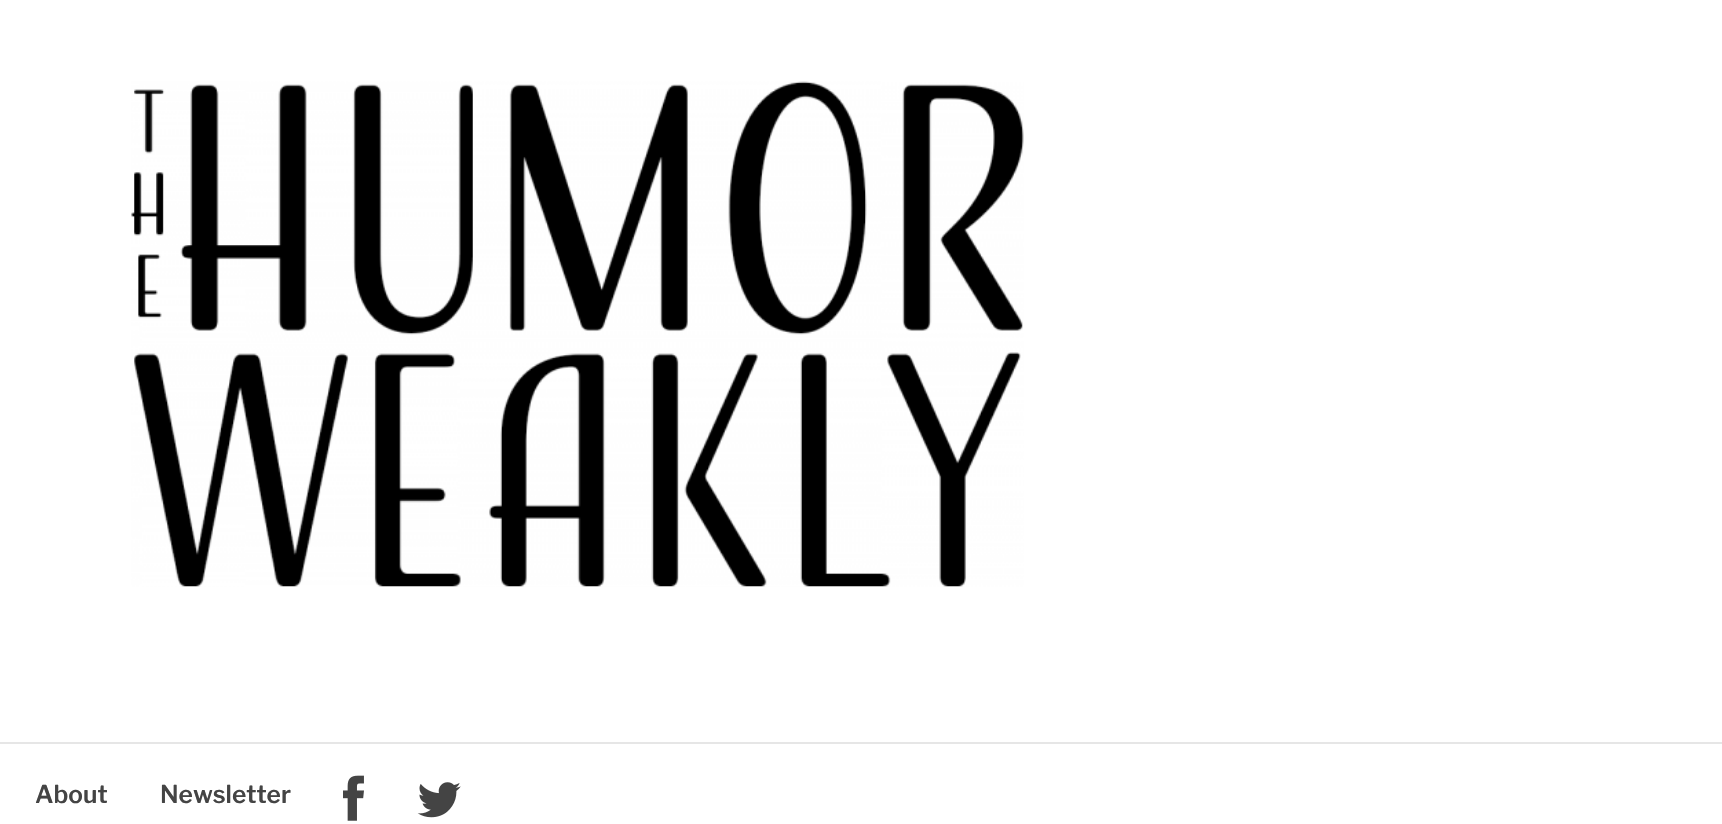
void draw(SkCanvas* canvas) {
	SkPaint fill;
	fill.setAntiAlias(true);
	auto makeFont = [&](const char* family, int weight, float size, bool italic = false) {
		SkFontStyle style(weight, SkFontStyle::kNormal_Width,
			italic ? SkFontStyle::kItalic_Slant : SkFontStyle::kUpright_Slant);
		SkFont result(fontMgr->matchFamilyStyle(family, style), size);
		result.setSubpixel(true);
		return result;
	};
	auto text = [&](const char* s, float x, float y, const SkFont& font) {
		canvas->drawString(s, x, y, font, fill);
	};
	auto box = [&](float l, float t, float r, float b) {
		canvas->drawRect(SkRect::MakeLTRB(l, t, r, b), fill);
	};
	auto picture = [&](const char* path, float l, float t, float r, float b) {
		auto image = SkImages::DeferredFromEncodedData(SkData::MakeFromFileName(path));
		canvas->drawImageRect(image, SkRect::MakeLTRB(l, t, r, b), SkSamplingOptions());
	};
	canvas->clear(0xFFFFFFFF);
	picture("image0.png", 131, 81, 1024, 587);
	fill.setColor(0xFFE6E6E6);
	box(0, 742, 1722, 744);
	picture("image1.png", 343, 775, 364, 821);
	picture("image2.png", 417, 782, 461, 818);
	auto font1 = makeFont("Libre Franklin", 600, 24.5f);
	fill.setColor(0xFF444444);
	text("About", 35, 803, font1);
	text("Newsletter", 160, 803, font1);
}
